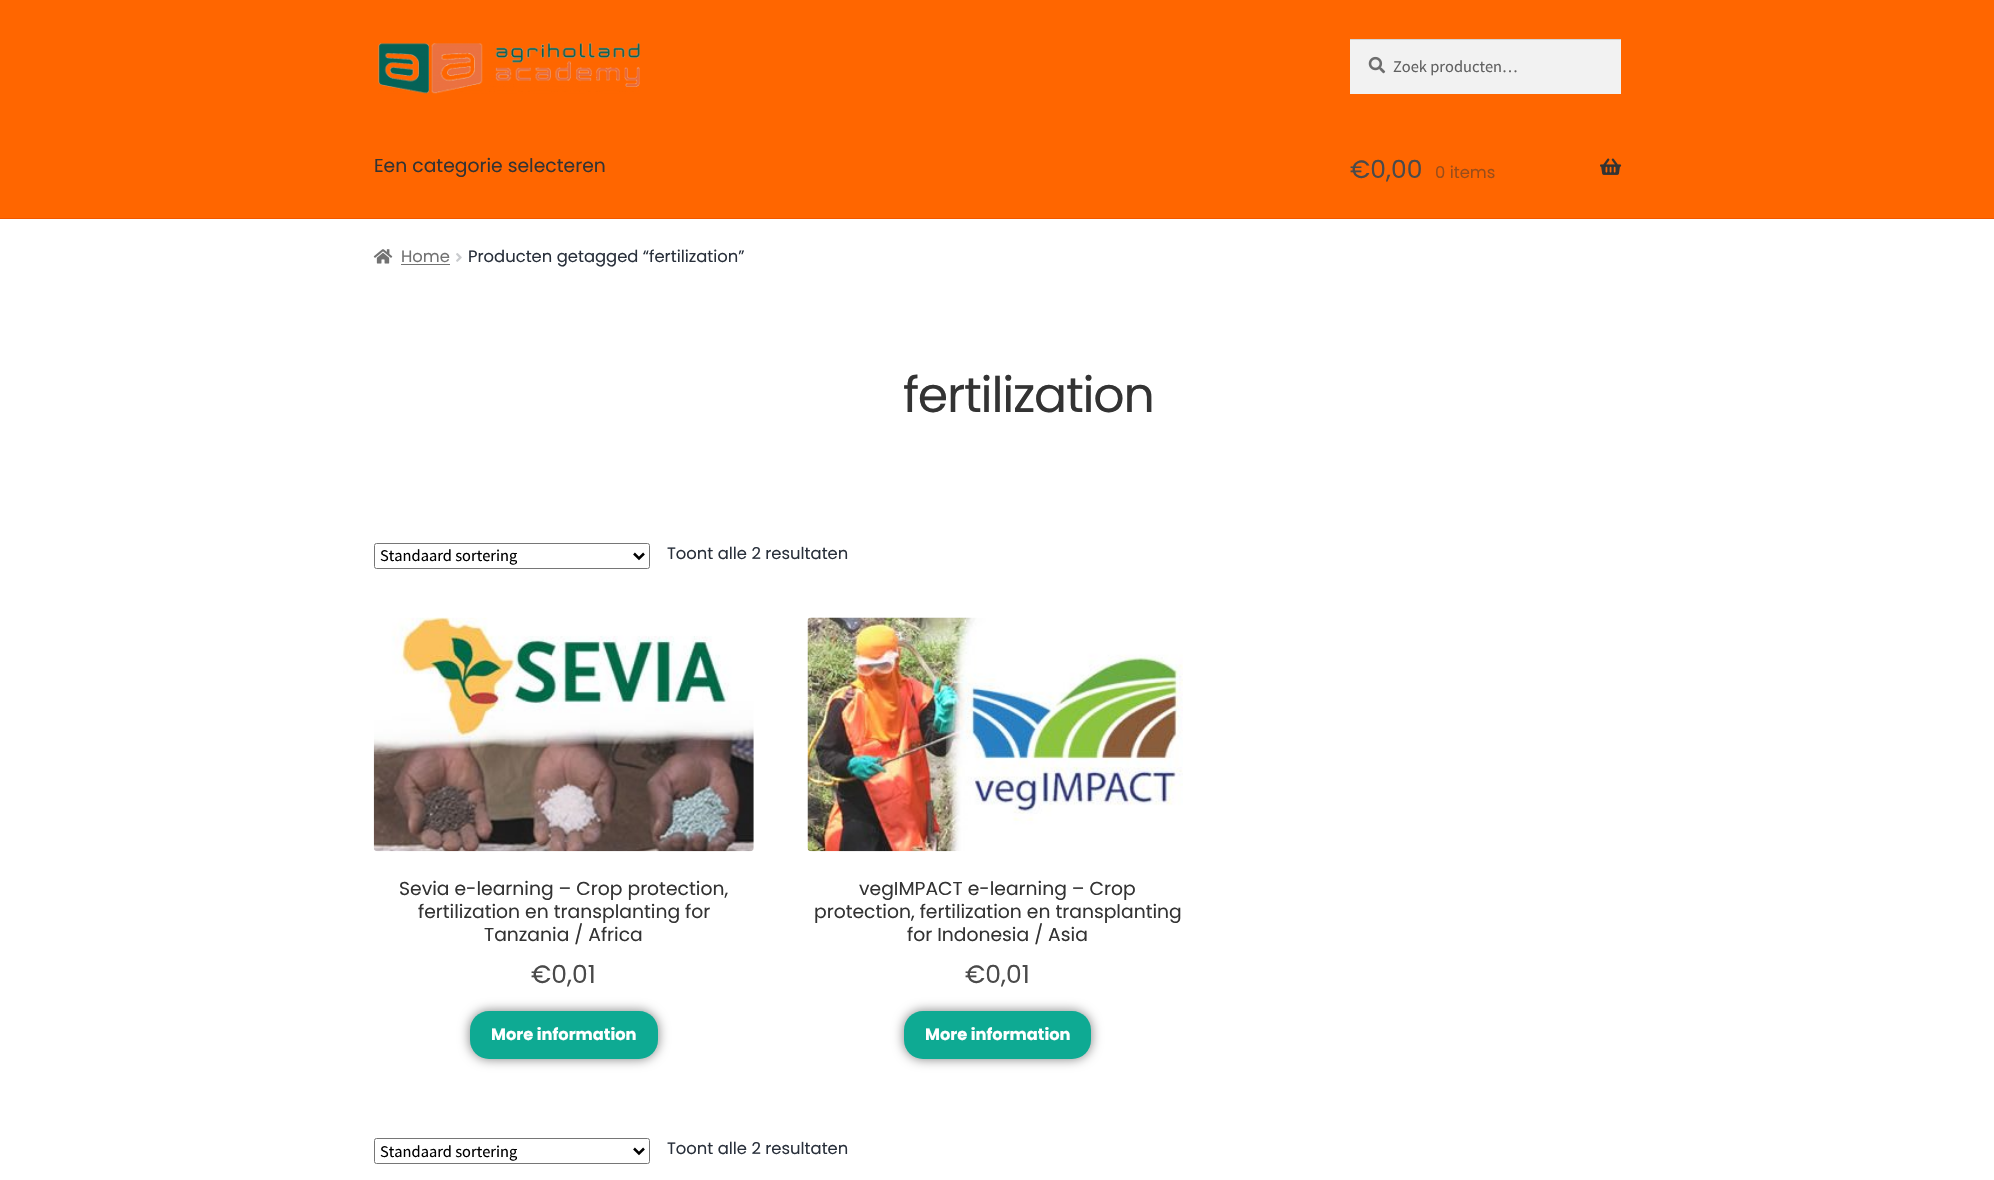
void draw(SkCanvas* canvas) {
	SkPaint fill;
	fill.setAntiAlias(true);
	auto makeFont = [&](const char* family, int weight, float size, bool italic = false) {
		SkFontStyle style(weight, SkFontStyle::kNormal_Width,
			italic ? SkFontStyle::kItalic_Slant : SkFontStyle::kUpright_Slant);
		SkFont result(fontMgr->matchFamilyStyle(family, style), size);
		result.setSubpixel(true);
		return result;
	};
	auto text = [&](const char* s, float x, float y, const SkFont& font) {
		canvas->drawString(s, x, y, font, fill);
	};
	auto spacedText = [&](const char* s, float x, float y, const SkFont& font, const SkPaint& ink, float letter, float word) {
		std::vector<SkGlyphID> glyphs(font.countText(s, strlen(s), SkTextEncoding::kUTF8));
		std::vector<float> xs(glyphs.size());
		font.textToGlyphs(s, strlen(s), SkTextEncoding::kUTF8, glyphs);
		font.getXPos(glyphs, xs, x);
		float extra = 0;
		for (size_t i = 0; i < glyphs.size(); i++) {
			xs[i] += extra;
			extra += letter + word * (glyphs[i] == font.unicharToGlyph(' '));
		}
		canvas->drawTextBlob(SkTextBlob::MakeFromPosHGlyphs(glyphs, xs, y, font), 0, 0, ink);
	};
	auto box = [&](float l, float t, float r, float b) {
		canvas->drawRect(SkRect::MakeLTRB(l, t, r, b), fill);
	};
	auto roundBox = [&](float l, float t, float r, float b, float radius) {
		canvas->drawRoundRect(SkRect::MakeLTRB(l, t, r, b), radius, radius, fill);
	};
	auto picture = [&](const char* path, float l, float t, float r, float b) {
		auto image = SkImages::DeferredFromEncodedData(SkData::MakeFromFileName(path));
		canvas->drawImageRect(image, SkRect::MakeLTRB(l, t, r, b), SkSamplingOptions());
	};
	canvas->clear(0xFFFFFFFF);
	fill.setColor(0xFFFF6600);
	box(0, 0, 1994, 218);
	fill.setColor(0xFFF05700);
	box(0, 218, 1994, 219);
	picture("image0.png", 378, 42, 640, 94);
	fill.setColor(0xFFF2F2F2);
	box(1350, 40, 1621, 94);
	picture("image1.png", 1368, 56, 1386, 74);
	fill.setColor(0xFFD4D4D4);
	box(1350, 39, 1621, 40);
	picture("image2.png", 1600, 158, 1622, 175);
	picture("image3.png", 373, 249, 393, 264);
	fill.setColor(0xFF727272);
	box(401, 264, 450, 265);
	picture("image4.png", 456, 253, 462, 262);
	fill.setStyle(SkPaint::kStroke_Style);
	fill.setStrokeWidth(1);
	fill.setColor(0xFF767676);
	canvas->drawRoundRect(SkRect::MakeLTRB(374.5f, 543.5f, 649.5f, 568.5f), 2, 2, fill);
	fill.setStrokeWidth(2.5f);
	fill.setColor(0xFF000000);
	canvas->drawPath(SkPathBuilder().moveTo(634, 553.5f).lineTo(639, 558.5f).lineTo(644, 553.5f).detach(), fill);
	picture("image5.png", 373, 617, 754, 852);
	fill.setStyle(SkPaint::kFill_Style);
	fill.setColor(0x80000000);
	fill.setMaskFilter(SkMaskFilter::MakeBlur(kNormal_SkBlurStyle, 6));
	canvas->drawRoundRect(SkRect::MakeLTRB(470, 1011, 658, 1059), 19, 19, fill);
	fill.setMaskFilter(nullptr);
	fill.setColor(0xFF0EAA93);
	roundBox(470, 1011, 658, 1059, 19);
	picture("image6.png", 807, 617, 1183, 852);
	fill.setColor(0x80000000);
	fill.setMaskFilter(SkMaskFilter::MakeBlur(kNormal_SkBlurStyle, 6));
	canvas->drawRoundRect(SkRect::MakeLTRB(904, 1011, 1091, 1059), 19, 19, fill);
	fill.setMaskFilter(nullptr);
	fill.setColor(0xFF0EAA93);
	roundBox(904, 1011, 1091, 1059, 19);
	fill.setStyle(SkPaint::kStroke_Style);
	fill.setStrokeWidth(1);
	fill.setColor(0xFF767676);
	canvas->drawRoundRect(SkRect::MakeLTRB(374.5f, 1138.5f, 649.5f, 1163.5f), 2, 2, fill);
	fill.setStrokeWidth(2.5f);
	fill.setColor(0xFF000000);
	canvas->drawPath(SkPathBuilder().moveTo(634, 1148.5f).lineTo(639, 1153.5f).lineTo(644, 1148.5f).detach(), fill);
	auto font1 = makeFont("Source Sans Pro", 400, 16.4f);
	fill.setStyle(SkPaint::kFill_Style);
	fill.setColor(0xFF616161);
	text("Zoek producten…", 1393, 72, font1);
	auto font2 = makeFont("Poppins", 400, 18.75f);
	fill.setColor(0xFF333333);
	text("Een categorie selecteren", 374, 172, font2);
	auto font3 = makeFont("Poppins", 400, 25);
	fill.setColor(0xFF4A4A4A);
	text("€0,00", 1350, 178, font3);
	auto font4 = makeFont("Poppins", 400, 16.4f);
	fill.setColor(0xFF994D1A);
	text("0 items", 1435, 178, font4);
	fill.setColor(0xFF727272);
	text("Home", 401, 262, font4);
	fill.setColor(0xFF29303B);
	text("Producten getagged “fertilization”", 468, 262, font4);
	auto font5 = makeFont("Poppins", 400, 49);
	fill.setColor(0xFF333333);
	spacedText("fertilization", 903, 412, font5, fill, -1.25f, 0);
	fill.setColor(0xFF000000);
	text("Standaard sortering", 380, 561, font1);
	fill.setColor(0xFF29303B);
	text("Toont alle 2 resultaten", 667, 559, font4);
	fill.setColor(0xFF333333);
	text("Sevia e-learning – Crop protection,", 399, 895, font2);
	text("fertilization en transplanting for", 418, 918, font2);
	text("Tanzania / Africa", 484, 941, font2);
	fill.setColor(0xFF4A4A4A);
	text("€0,01", 531, 983, font3);
	auto font6 = makeFont("Poppins", 700, 16.25f);
	fill.setColor(0xFFFFFFFF);
	text("More information", 491, 1040, font6);
	fill.setColor(0xFF333333);
	text("vegIMPACT e-learning – Crop", 859, 895, font2);
	text("protection, fertilization en transplanting", 814, 918, font2);
	text("for Indonesia / Asia", 907, 941, font2);
	fill.setColor(0xFF4A4A4A);
	text("€0,01", 965, 983, font3);
	fill.setColor(0xFFFFFFFF);
	text("More information", 925, 1040, font6);
	fill.setColor(0xFF000000);
	text("Standaard sortering", 380, 1157, font1);
	fill.setColor(0xFF29303B);
	text("Toont alle 2 resultaten", 667, 1154, font4);
}
